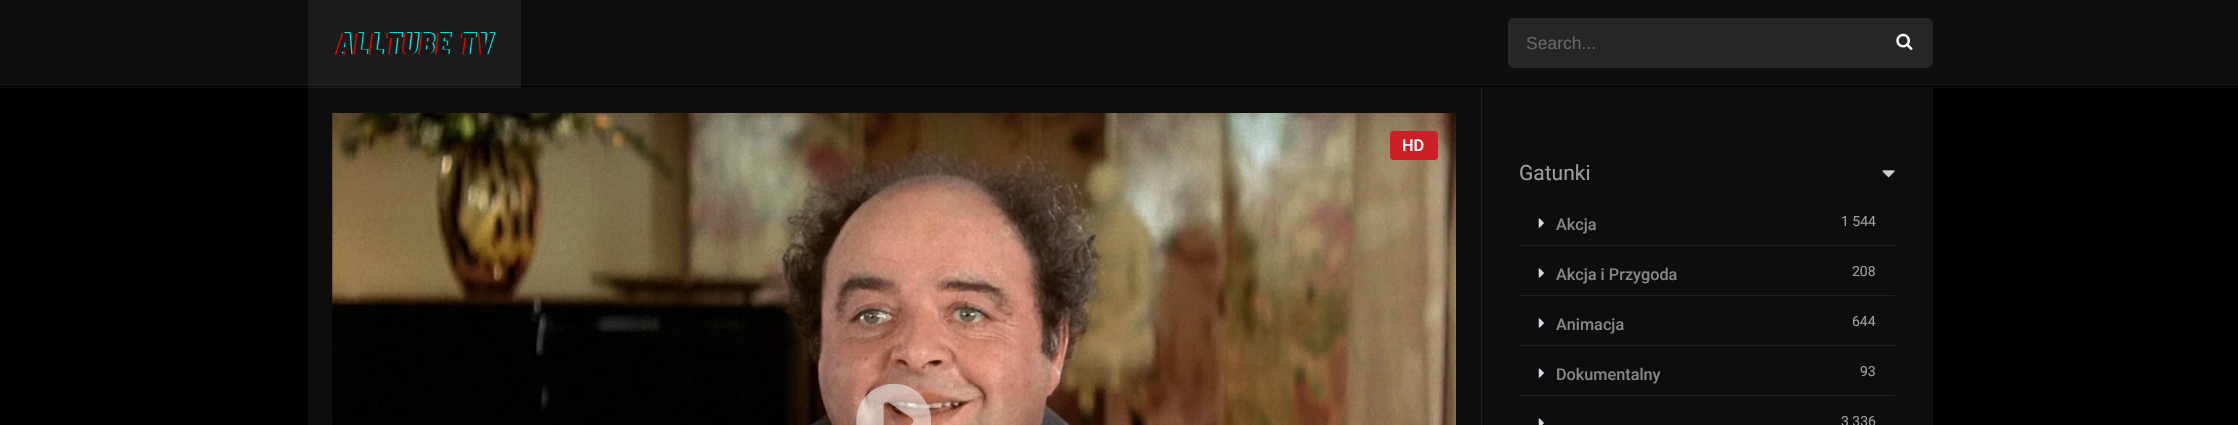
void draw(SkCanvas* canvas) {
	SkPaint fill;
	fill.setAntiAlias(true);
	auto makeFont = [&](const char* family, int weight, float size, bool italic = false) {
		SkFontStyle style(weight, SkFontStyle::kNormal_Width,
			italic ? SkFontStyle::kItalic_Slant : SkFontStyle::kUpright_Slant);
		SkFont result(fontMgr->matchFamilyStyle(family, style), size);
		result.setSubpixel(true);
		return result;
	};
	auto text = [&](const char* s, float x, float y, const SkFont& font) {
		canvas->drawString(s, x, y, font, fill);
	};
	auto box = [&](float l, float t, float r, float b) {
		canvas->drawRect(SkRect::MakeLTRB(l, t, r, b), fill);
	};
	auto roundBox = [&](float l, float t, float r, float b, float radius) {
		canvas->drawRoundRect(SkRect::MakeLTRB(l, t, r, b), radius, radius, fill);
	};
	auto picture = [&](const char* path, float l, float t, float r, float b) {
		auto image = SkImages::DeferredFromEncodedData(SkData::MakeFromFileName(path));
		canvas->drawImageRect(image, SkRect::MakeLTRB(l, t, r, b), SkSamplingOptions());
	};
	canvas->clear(0xFF000000);
	fill.setColor(0xFF0E0E0E);
	box(0, 0, 2238, 88);
	fill.setColor(0xFF000000);
	box(0, 86, 2238, 87);
	fill.setColor(0x0DFFFFFF);
	box(308, 0, 521, 88);
	picture("image0.png", 334, 32, 496, 55);
	fill.setColor(0xFF262626);
	roundBox(1508, 18, 1933, 68, 6);
	picture("image1.png", 1896, 33, 1913, 50);
	fill.setColor(0xFF0D0D0D);
	box(308, 88, 1933, 425);
	fill.setColor(0xFF202020);
	box(1481, 88, 1482, 425);
	picture("image2.png", 332, 113, 1456, 425);
	fill.setColor(0xFFCD2026);
	roundBox(1390, 131, 1438, 160, 4);
	picture("image3.png", 856, 384, 931, 425);
	picture("image4.png", 1882, 170, 1895, 178);
	fill.setColor(0xFF202020);
	box(1520, 245, 1895, 246);
	picture("image5.png", 1538, 218, 1544, 228);
	box(1520, 295, 1895, 296);
	picture("image5.png", 1538, 268, 1544, 278);
	box(1520, 345, 1895, 346);
	picture("image5.png", 1538, 318, 1544, 328);
	box(1520, 395, 1895, 396);
	picture("image5.png", 1538, 368, 1544, 378);
	picture("image6.png", 1538, 418, 1544, 425);
	auto font1 = makeFont("Liberation Sans", 400, 17.5f);
	fill.setColor(0xFF676767);
	text("Search...", 1526, 49, font1);
	auto font2 = makeFont("Roboto", 500, 16.25f);
	fill.setColor(0xFFFFFFFF);
	text("HD", 1402, 151, font2);
	auto font3 = makeFont("Roboto", 400, 21);
	fill.setColor(0xFF9E9E9E);
	text("Gatunki", 1519, 180, font3);
	fill.setColor(0xFF868686);
	text("Akcja", 1556, 230, font2);
	auto font4 = makeFont("Roboto", 400, 14);
	fill.setColor(0xFF9E9E9E);
	text("1 544", 1841, 226, font4);
	fill.setColor(0xFF868686);
	text("Akcja i Przygoda", 1556, 280, font2);
	fill.setColor(0xFF9E9E9E);
	text("208", 1852, 276, font4);
	fill.setColor(0xFF868686);
	text("Animacja", 1556, 330, font2);
	fill.setColor(0xFF9E9E9E);
	text("644", 1852, 326, font4);
	fill.setColor(0xFF868686);
	text("Dokumentalny", 1556, 380, font2);
	fill.setColor(0xFF9E9E9E);
	text("93", 1860, 376, font4);
	text("3 336", 1841, 426, font4);
}
